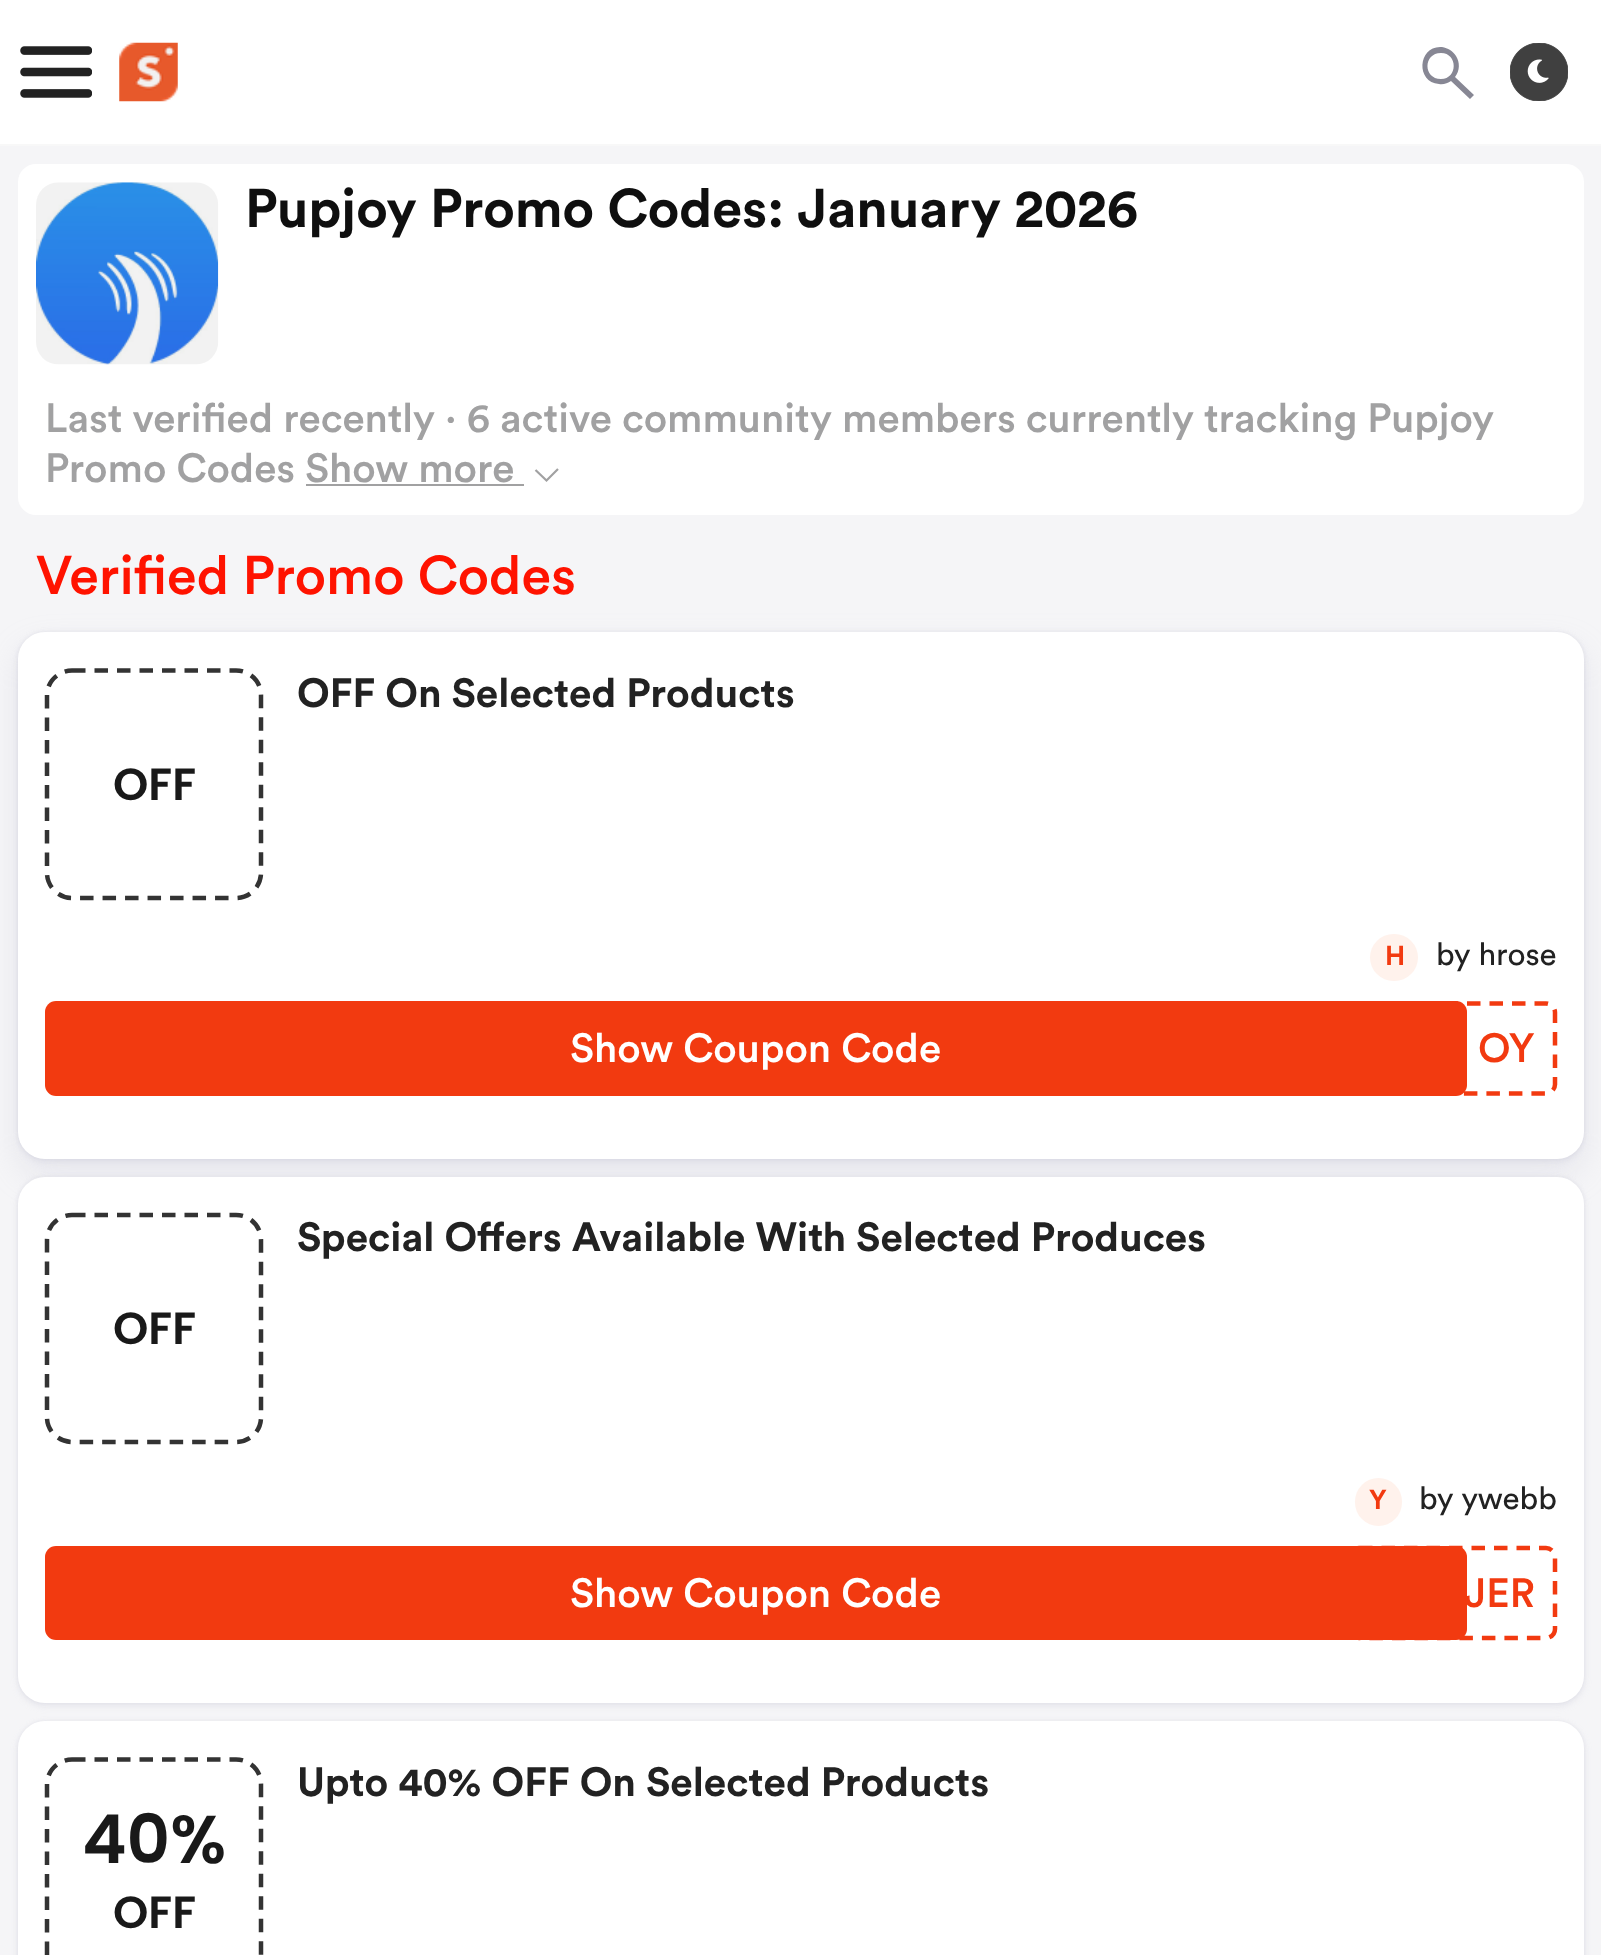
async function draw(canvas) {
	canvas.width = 1601;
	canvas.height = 1955;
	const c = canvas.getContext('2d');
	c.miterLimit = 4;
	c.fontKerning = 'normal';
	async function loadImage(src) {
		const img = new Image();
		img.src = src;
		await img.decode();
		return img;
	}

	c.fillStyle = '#f5f5f7';
	c.fillRect(0, 0, 1601, 1955);
	c.fillStyle = '#fff';
	c.fillRect(0, 0, 1601, 144);
	c.fillStyle = '#f8f8f8';
	c.fillRect(0, 144, 1601, 2);
	c.drawImage(await loadImage('img1.png'), 20, 46, 72, 52);
	c.drawImage(await loadImage('img2.png'), 119, 42, 59, 60);
	c.fillStyle = '#878794';
	c.beginPath();
	c.moveTo(1470, 99);
	c.lineTo(1451, 81);
	c.bezierCurveTo(1448, 83, 1443, 85, 1439, 84);
	c.bezierCurveTo(1415, 82, 1418, 45, 1442, 47);
	c.bezierCurveTo(1448, 48, 1453, 51, 1456, 56);
	c.bezierCurveTo(1460, 62, 1460, 71, 1455, 77);
	c.lineTo(1474, 95);
	c.closePath();
	c.moveTo(1441, 79);
	c.bezierCurveTo(1458, 79, 1458, 53, 1441, 53);
	c.bezierCurveTo(1423, 53, 1423, 79, 1441, 79);
	c.closePath();
	c.fill();
	c.drawImage(await loadImage('img3.png'), 1510, 43, 58, 58);
	c.fillStyle = '#fff';
	c.beginPath();
	c.roundRect(18, 164, 1566, 351, 18);
	c.fill();
	c.drawImage(await loadImage('img4.png'), 36, 182, 183, 183);
	c.font = 'bold 54px Circular';
	c.fillStyle = '#0f0f0f';
	c.fillText('Pupjoy Promo Codes: January 2026', 245, 227);
	c.font = '500 40.5px Circular';
	c.fillStyle = '#a1a1a2';
	c.fillText('Last verified recently · 6 active community members currently tracking Pupjoy', 45, 432);
	c.fillText('Promo Codes Show more', 45, 482);
	c.beginPath();
	c.moveTo(558, 469);
	c.lineTo(546.5, 480.5);
	c.lineTo(535.5, 470);
	c.strokeStyle = '#a1a1a2';
	c.lineWidth = 2.2;
	c.stroke();
	c.fillRect(306, 484, 218, 2);
	c.font = '500 54px Circular';
	c.fillStyle = '#ff1300';
	c.fillText('Verified Promo Codes', 36, 594);
	c.fillStyle = '#bdbdce33';
	c.filter = 'blur(2px)';
	c.beginPath();
	c.roundRect(18, 632, 1566, 527, 27);
	c.fill();
	c.filter = 'none';
	c.fillStyle = '#bdbdce40';
	c.filter = 'blur(3.5px)';
	c.beginPath();
	c.roundRect(18, 635, 1566, 526, 27);
	c.fill();
	c.filter = 'none';
	c.filter = 'blur(16px)';
	c.beginPath();
	c.roundRect(18, 648, 1566, 527, 27);
	c.fill();
	c.filter = 'none';
	c.fillStyle = '#fff';
	c.beginPath();
	c.roundRect(18, 632, 1566, 527, 27);
	c.fill();
	c.font = 'bold 40.5px Circular';
	c.fillStyle = '#222';
	c.fillText('OFF On Selected Products', 297, 707);
	c.beginPath();
	c.moveTo(72, 670.5);
	c.lineTo(236, 670.5);
	c.bezierCurveTo(250, 670.5, 261, 681.5, 261, 695);
	c.lineTo(261, 873);
	c.bezierCurveTo(261, 886.5, 250, 898, 236, 898);
	c.lineTo(72, 898);
	c.bezierCurveTo(58.5, 898, 47, 886.5, 47, 873);
	c.lineTo(47, 695);
	c.bezierCurveTo(47, 681.5, 58.5, 670.5, 72, 670.5);
	c.closePath();
	c.strokeStyle = '#333';
	c.lineWidth = 4.5;
	c.setLineDash([13.5, 9]);
	c.stroke();
	c.font = '600 45px Poppins';
	c.fillStyle = '#191919';
	c.fillText('OFF', 113, 800);
	c.fillStyle = '#fff2ec';
	c.beginPath();
	c.roundRect(1370, 934, 48, 47, 23.5);
	c.fill();
	c.font = 'bold 27px Circular';
	c.fillStyle = '#f23a10';
	c.fillText('H', 1385, 965);
	c.font = '31.5px Circular';
	c.fillStyle = '#222';
	c.fillText('by hrose', 1436, 965);
	c.beginPath();
	c.moveTo(1354.5, 1003.5);
	c.lineTo(1546, 1003.5);
	c.bezierCurveTo(1550.5, 1003.5, 1555, 1007.5, 1555, 1012.5);
	c.lineTo(1555, 1084.5);
	c.bezierCurveTo(1555, 1089.5, 1550.5, 1093.5, 1546, 1093.5);
	c.lineTo(1354.5, 1093.5);
	c.bezierCurveTo(1349.5, 1093.5, 1345.5, 1089.5, 1345.5, 1084.5);
	c.lineTo(1345.5, 1012.5);
	c.bezierCurveTo(1345.5, 1007.5, 1349.5, 1003.5, 1354.5, 1003.5);
	c.closePath();
	c.strokeStyle = '#f23a10';
	c.stroke();
	c.fillStyle = '#f23a10';
	c.beginPath();
	c.roundRect(45, 1001, 1422, 95, 11);
	c.fill();
	c.font = '500 40.5px Circular';
	c.fillStyle = '#fff';
	c.fillText('Show Coupon Code', 570, 1062);
	c.fillStyle = '#f23a10';
	c.fillText('OY', 1478, 1062);
	c.fillStyle = '#bdbdce33';
	c.filter = 'blur(2px)';
	c.beginPath();
	c.roundRect(18, 1177, 1566, 526, 27);
	c.fill();
	c.filter = 'none';
	c.fillStyle = '#bdbdce40';
	c.filter = 'blur(3.5px)';
	c.beginPath();
	c.roundRect(18, 1179, 1566, 527, 27);
	c.fill();
	c.filter = 'none';
	c.fillStyle = '#fff';
	c.beginPath();
	c.roundRect(18, 1177, 1566, 526, 27);
	c.fill();
	c.font = 'bold 40.5px Circular';
	c.fillStyle = '#222';
	c.fillText('Special Offers Available With Selected Produces', 297, 1251);
	c.beginPath();
	c.moveTo(72, 1215);
	c.lineTo(236, 1215);
	c.bezierCurveTo(250, 1215, 261, 1226, 261, 1240);
	c.lineTo(261, 1417.5);
	c.bezierCurveTo(261, 1431, 250, 1442, 236, 1442);
	c.lineTo(72, 1442);
	c.bezierCurveTo(58.5, 1442, 47, 1431, 47, 1417.5);
	c.lineTo(47, 1240);
	c.bezierCurveTo(47, 1226, 58.5, 1215, 72, 1215);
	c.closePath();
	c.strokeStyle = '#333';
	c.stroke();
	c.font = '600 45px Poppins';
	c.fillStyle = '#191919';
	c.fillText('OFF', 113, 1344);
	c.fillStyle = '#fff2ec';
	c.beginPath();
	c.roundRect(1355, 1478, 47, 48, 23.5);
	c.fill();
	c.font = 'bold 27px Circular';
	c.fillStyle = '#f23a10';
	c.fillText('Y', 1369, 1509);
	c.font = '31.5px Circular';
	c.fillStyle = '#222';
	c.fillText('by ywebb', 1419, 1509);
	c.beginPath();
	c.moveTo(1359, 1548);
	c.lineTo(1546, 1548);
	c.bezierCurveTo(1550.5, 1548, 1555, 1552, 1555, 1557);
	c.lineTo(1555, 1629);
	c.bezierCurveTo(1555, 1634, 1550.5, 1638, 1546, 1638);
	c.lineTo(1359, 1638);
	c.bezierCurveTo(1354, 1638, 1350, 1634, 1350, 1629);
	c.lineTo(1350, 1557);
	c.bezierCurveTo(1350, 1552, 1354, 1548, 1359, 1548);
	c.closePath();
	c.strokeStyle = '#f23a10';
	c.stroke();
	c.fillStyle = '#f23a10';
	c.beginPath();
	c.roundRect(45, 1546, 1422, 94, 11);
	c.fill();
	c.font = '500 40.5px Circular';
	c.fillStyle = '#fff';
	c.fillText('Show Coupon Code', 570, 1607);
	c.fillStyle = '#f23a10';
	c.fillText('JER', 1464, 1607);
	c.fillStyle = '#bdbdce33';
	c.filter = 'blur(2px)';
	c.beginPath();
	c.roundRect(18, 1721, 1566, 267, 27);
	c.fill();
	c.filter = 'none';
	c.fillStyle = '#bdbdce40';
	c.filter = 'blur(3.5px)';
	c.beginPath();
	c.roundRect(18, 1724, 1566, 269, 27);
	c.fill();
	c.filter = 'none';
	c.fillStyle = '#fff';
	c.beginPath();
	c.roundRect(18, 1721, 1566, 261, 27);
	c.fill();
	c.font = 'bold 40.5px Circular';
	c.fillStyle = '#222';
	c.fillText('Upto 40% OFF On Selected Products', 297, 1796);
	c.beginPath();
	c.moveTo(72, 1759.5);
	c.lineTo(236, 1759.5);
	c.bezierCurveTo(250, 1759.5, 261, 1770.5, 261, 1784);
	c.lineTo(261, 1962);
	c.bezierCurveTo(261, 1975.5, 250, 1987, 236, 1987);
	c.lineTo(72, 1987);
	c.bezierCurveTo(58.5, 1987, 47, 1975.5, 47, 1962);
	c.lineTo(47, 1784);
	c.bezierCurveTo(47, 1770.5, 58.5, 1759.5, 72, 1759.5);
	c.closePath();
	c.strokeStyle = '#333';
	c.stroke();
	c.font = '600 67.5px Poppins';
	c.fillStyle = '#191919';
	c.fillText('40%', 82, 1863);
	c.font = '600 45px Poppins';
	c.fillText('OFF', 113, 1928);
}

draw(document.querySelector('canvas'));
